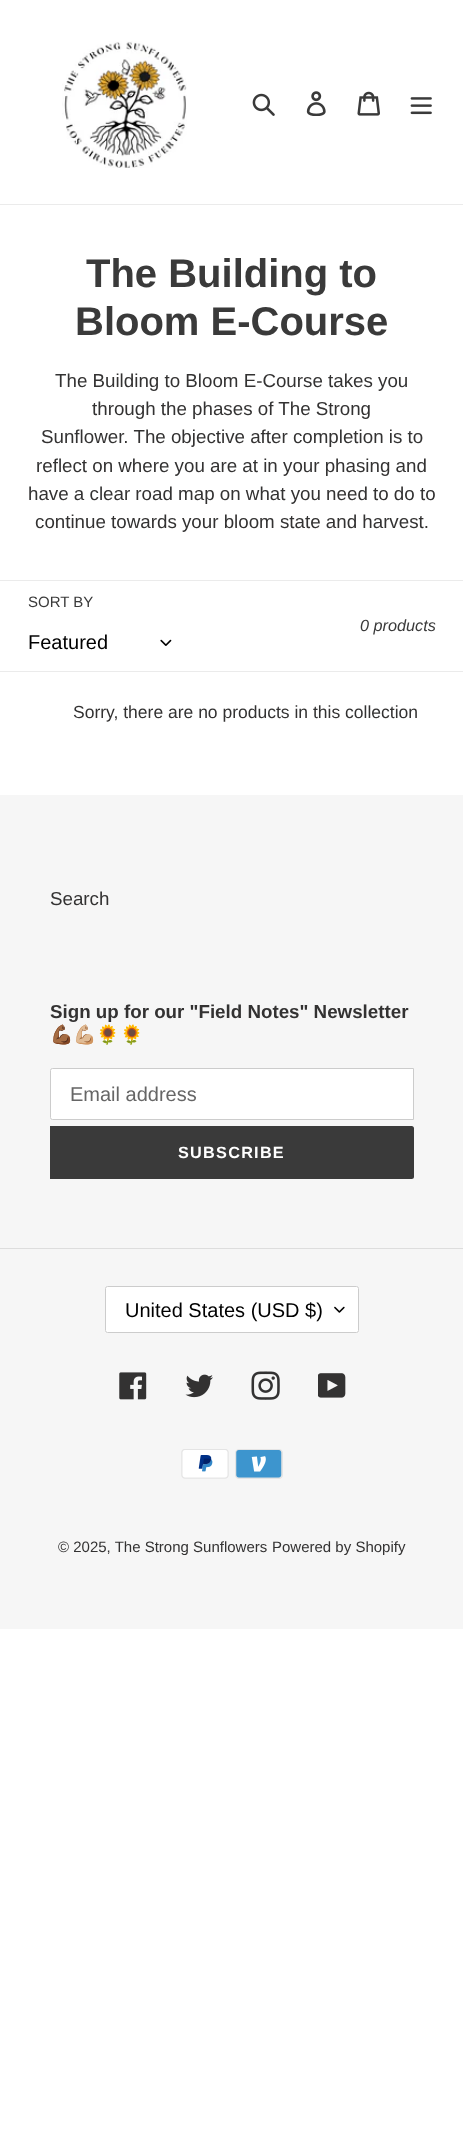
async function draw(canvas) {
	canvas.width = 463;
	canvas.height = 2154;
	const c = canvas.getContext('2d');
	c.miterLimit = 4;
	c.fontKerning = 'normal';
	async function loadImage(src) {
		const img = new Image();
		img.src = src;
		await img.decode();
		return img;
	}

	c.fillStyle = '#fff';
	c.fillRect(0, 0, 463, 2154);
	c.fillStyle = '#ebebeb';
	c.fillRect(0, 204, 463, 1);
	c.drawImage(await loadImage('img1.png'), 62, 41, 125, 127);
	c.drawImage(await loadImage('img2.png'), 252, 93, 23, 23);
	c.drawImage(await loadImage('img3.png'), 306, 91, 20, 25);
	c.drawImage(await loadImage('img4.png'), 357, 91, 23, 25);
	c.drawImage(await loadImage('img5.png'), 410, 97, 22, 18);
	c.font = 'bold 40px Liberation Sans';
	c.fillStyle = '#3a3a3a';
	c.fillText('The Building to', 86, 287);
	c.fillText('Bloom E-Course', 75, 335);
	c.font = '18.75px Liberation Sans';
	c.fillStyle = '#333232';
	for (const [text, x, y] of [
		['The Building to Bloom E-Course takes you', 55, 387],
		['through the phases of The Strong', 92, 415],
		['Sunflower. The objective after completion is to', 41, 443],
		['reflect on where you are at in your phasing and', 36, 472],
		['have a clear road map on what you need to do to', 28, 500],
		['continue towards your bloom state and harvest.', 35, 528],
	]) {
		c.fillText(text, x, y);
	}
	c.fillStyle = '#ebebeb';
	c.fillRect(0, 580, 463, 1);
	c.fillRect(0, 671, 463, 1);
	c.font = '15px Liberation Sans';
	c.fillStyle = '#3a3a3a';
	c.fillText('SORT BY', 28, 607);
	c.font = '20px Liberation Sans';
	c.fillStyle = '#000';
	c.fillText('Featured', 28, 649);
	c.drawImage(await loadImage('img6.png'), 160, 639, 12, 7);
	c.font = 'italic 16.25px Liberation Sans';
	c.fillStyle = '#3a3a3a';
	c.fillText('0 products', 360, 631);
	c.font = '17.5px Liberation Sans';
	c.fillStyle = '#333232';
	c.fillText('Sorry, there are no products in this collection', 73, 718);
	c.fillStyle = '#f6f6f6';
	c.fillRect(0, 795, 463, 834);
	c.font = '18.75px Liberation Sans';
	c.fillStyle = '#333232';
	c.fillText('Search', 50, 905);
	c.font = 'bold 18.75px Liberation Sans';
	c.fillText('Sign up for our "Field Notes" Newsletter', 50, 1018);
	c.font = 'bold 18.75px Noto Color Emoji';
	c.fillText('💪🏾💪🏼🌻🌻', 50, 1041);
	c.fillStyle = '#fff';
	c.beginPath();
	c.roundRect(50.5, 1068.5, 363, 51, [2, 0, 0, 2]);
	c.fill();
	c.strokeStyle = '#ccc';
	c.stroke();
	c.font = '20px Liberation Sans';
	c.fillStyle = '#666';
	c.fillText('Email address', 70, 1101);
	c.fillStyle = '#3a3a3a';
	c.beginPath();
	c.roundRect(50, 1126, 364, 53, [0, 2.5, 2.5, 0]);
	c.fill();
	c.letterSpacing = '1.25px';
	c.font = 'bold 16.25px Liberation Sans';
	c.fillStyle = '#fff';
	c.fillText('SUBSCRIBE', 178, 1158);
	c.fillStyle = '#ddd';
	c.fillRect(0, 1248, 463, 1);
	c.fillStyle = '#fff';
	c.beginPath();
	c.roundRect(105, 1286, 254, 47, 2.5);
	c.fill();
	c.drawImage(await loadImage('img7.png'), 334, 1306, 11, 7);
	c.beginPath();
	c.roundRect(105.5, 1286.5, 253, 46, 2);
	c.stroke();
	c.letterSpacing = '0px';
	c.font = '20px Liberation Sans';
	c.fillStyle = '#000';
	c.fillText('United States (USD $)', 125, 1317);
	c.drawImage(await loadImage('img8.png'), 119, 1372, 28, 28);
	c.drawImage(await loadImage('img9.png'), 185, 1374, 28, 24);
	c.drawImage(await loadImage('img10.png'), 251, 1371, 29, 29);
	c.drawImage(await loadImage('img11.png'), 318, 1373, 28, 25);
	c.drawImage(await loadImage('img12.png'), 181, 1449, 48, 30);
	c.drawImage(await loadImage('img13.png'), 235, 1449, 48, 30);
	c.font = '15px Liberation Sans';
	c.fillStyle = '#333232';
	c.fillText('© 2025, The Strong Sunflowers', 58, 1552);
	c.fillText('Powered by Shopify', 272, 1552);
}

draw(document.querySelector('canvas'));
